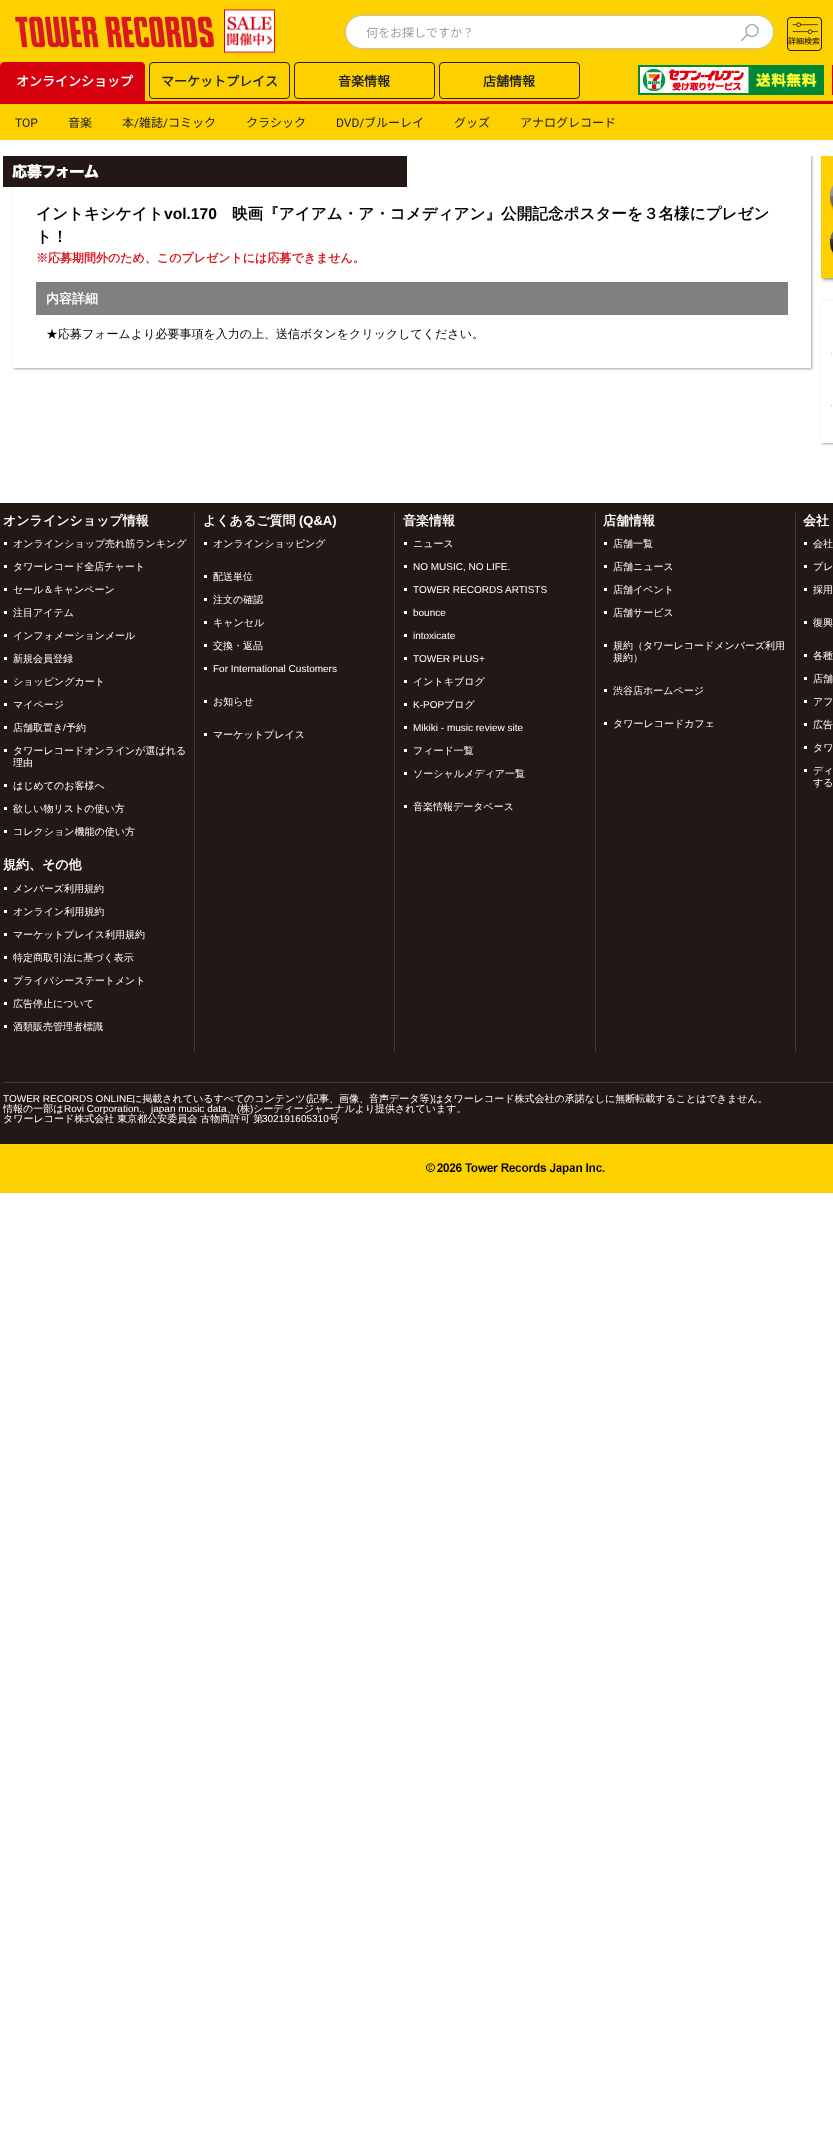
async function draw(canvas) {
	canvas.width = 833;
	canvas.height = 2147;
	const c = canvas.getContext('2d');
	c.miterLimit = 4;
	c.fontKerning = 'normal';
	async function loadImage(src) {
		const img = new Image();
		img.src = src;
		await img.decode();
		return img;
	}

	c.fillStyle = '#fff';
	c.fillRect(0, 0, 833, 2147);
	c.fillStyle = '#fdd000';
	c.fillRect(0, 0, 833, 140);
	c.drawImage(await loadImage('img1.png'), 15, 16, 199, 32);
	c.drawImage(await loadImage('img2.png'), 224, 9, 51, 45);
	c.fillStyle = '#fff';
	c.beginPath();
	c.roundRect(345.5, 15.5, 428, 33, 16.5);
	c.fill();
	c.strokeStyle = '#c0c0c0';
	c.stroke();
	c.font = '100 12px Noto Sans JP';
	c.fillStyle = '#9e9e9e';
	c.fillText('何をお探しですか？', 366, 37);
	c.beginPath();
	c.arc(752, 30.5, 6, 0, 2 * Math.PI);
	c.strokeStyle = '#9e9e9e';
	c.lineWidth = 1.2;
	c.stroke();
	c.beginPath();
	c.moveTo(747.5, 34.5);
	c.lineTo(741.5, 40.5);
	c.lineCap = 'round';
	c.lineJoin = 'round';
	c.stroke();
	c.drawImage(await loadImage('img3.png'), 787, 17, 35, 34);
	c.font = '100 8px Noto Sans JP';
	c.fillStyle = '#000';
	c.fillText('詳細検索', 788, 44);
	c.fillStyle = '#d6000f';
	c.fillRect(0, 101, 833, 3);
	c.beginPath();
	c.roundRect(0.5, 62.5, 144, 40, [3.5, 3.5, 0, 0]);
	c.fill();
	c.strokeStyle = '#d6000f';
	c.lineWidth = 1;
	c.lineJoin = 'miter';
	c.stroke();
	c.font = 'bold 13px Noto Sans JP';
	c.fillStyle = '#fff';
	c.fillText('オンラインショップ', 16, 86);
	c.beginPath();
	c.roundRect(149.5, 62.5, 140, 36, 3.5);
	c.strokeStyle = '#232323';
	c.stroke();
	c.fillStyle = '#232323';
	c.fillText('マーケットプレイス', 161, 86);
	c.beginPath();
	c.roundRect(294.5, 62.5, 140, 36, 3.5);
	c.stroke();
	c.fillText('音楽情報', 338, 86);
	c.beginPath();
	c.roundRect(439.5, 62.5, 140, 36, 3.5);
	c.stroke();
	c.fillText('店舗情報', 483, 86);
	c.drawImage(await loadImage('img4.png'), 638, 65, 186, 30);
	c.drawImage(await loadImage('img5.png'), 832, 65, 1, 30);
	c.font = '12px Roboto';
	c.fillText('TOP', 15, 127);
	c.font = '100 12px Noto Sans JP';
	c.fillText('音楽', 68, 127);
	c.fillText('本', 122, 127);
	c.font = '12px Roboto';
	c.fillText('/', 134, 127);
	c.font = '100 12px Noto Sans JP';
	c.fillText('雑誌', 139, 127);
	c.font = '12px Roboto';
	c.fillText('/', 163, 127);
	c.font = '100 12px Noto Sans JP';
	c.fillText('コミック', 168, 127);
	c.fillText('クラシック', 246, 127);
	c.font = '12px Roboto';
	c.fillText('DVD/', 336, 127);
	c.font = '100 12px Noto Sans JP';
	for (const [text, x, y] of [
		['ブルーレイ', 364, 127],
		['グッズ', 454, 127],
		['アナログレコード', 520, 127],
	]) {
		c.fillText(text, x, y);
	}
	c.drawImage(await loadImage('img6.png'), 12, 156, 802, 207);
	c.drawImage(await loadImage('img7.png'), 12, 363, 802, 9);
	c.drawImage(await loadImage('img8.png'), 3, 156, 404, 31);
	c.font = 'bold 15.6px WenQuanYi Zen Hei';
	c.fillStyle = '#000';
	c.fillText('イントキシケイト', 36, 219);
	c.font = 'bold 15.6px Liberation Sans';
	c.fillText('vol.170', 164, 219);
	c.font = 'bold 15.6px WenQuanYi Zen Hei';
	c.fillText('映画『アイアム・ア・コメディアン』公開記念ポスターを３名様にプレゼン', 232, 219);
	c.fillText('ト！', 36, 242);
	c.font = 'bold 12px WenQuanYi Zen Hei';
	c.fillStyle = '#d71920';
	c.fillText('※応募期間外のため、このプレゼントには応募できません。', 36, 262);
	c.fillStyle = '#808080';
	c.fillRect(36, 282, 752, 33);
	c.font = 'bold 13px WenQuanYi Zen Hei';
	c.fillStyle = '#fff';
	c.fillText('内容詳細', 46, 303);
	c.font = '500 12px WenQuanYi Zen Hei';
	c.fillStyle = '#000';
	c.fillText('★応募フォームより必要事項を入力の上、送信ボタンをクリックしてください。', 46, 338);
	c.drawImage(await loadImage('img9.png'), 821, 278, 12, 5);
	c.fillStyle = '#ffd000';
	c.fillRect(821, 156, 12, 122);
	c.drawImage(await loadImage('img10.png'), 830, 185, 3, 26);
	c.drawImage(await loadImage('img11.png'), 830, 231, 3, 25);
	c.drawImage(await loadImage('img12.png'), 817, 442, 16, 4);
	c.fillStyle = '#fbfbfb';
	c.fillRect(820, 298, 13, 4);
	c.fillStyle = '#f5f5f5';
	c.fillRect(820, 302, 1, 140);
	c.beginPath();
	c.moveTo(831, 353.5);
	c.lineTo(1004, 353.5);
	c.moveTo(831, 405.5);
	c.lineTo(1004, 405.5);
	c.strokeStyle = '#bab6b6';
	c.lineCap = 'butt';
	c.setLineDash([1, 1]);
	c.stroke();
	c.fillStyle = '#231815';
	c.fillRect(0, 503, 833, 641);
	c.drawImage(await loadImage('img13.png'), 194, 513, 602, 539);
	c.font = 'bold 13px WenQuanYi Zen Hei';
	c.fillStyle = '#fff';
	c.fillText('オンラインショップ情報', 3, 525);
	c.fillRect(4, 542, 3, 3);
	c.font = '500 10px WenQuanYi Zen Hei';
	c.fillText('オンラインショップ売れ筋ランキング', 13, 547);
	c.fillRect(4, 565, 3, 3);
	c.fillText('タワーレコード全店チャート', 13, 570);
	c.fillRect(4, 588, 3, 3);
	c.fillText('セール＆キャンペーン', 13, 593);
	c.fillRect(4, 611, 3, 3);
	c.fillText('注目アイテム', 13, 616);
	c.fillRect(4, 634, 3, 3);
	c.fillText('インフォメーションメール', 13, 639);
	c.fillRect(4, 657, 3, 3);
	c.fillText('新規会員登録', 13, 662);
	c.fillRect(4, 680, 3, 3);
	c.fillText('ショッピングカート', 13, 685);
	c.fillRect(4, 703, 3, 3);
	c.fillText('マイページ', 13, 708);
	c.fillRect(4, 726, 3, 3);
	c.fillText('店舗取置き', 13, 731);
	c.font = '10px Liberation Sans';
	c.fillText('/', 63, 731);
	c.font = '500 10px WenQuanYi Zen Hei';
	c.fillText('予約', 66, 731);
	c.fillRect(4, 749, 3, 3);
	c.fillText('タワーレコードオンラインが選ばれる', 13, 754);
	c.fillText('理由', 13, 766);
	c.fillRect(4, 784, 3, 3);
	c.fillText('はじめてのお客様へ', 13, 789);
	c.fillRect(4, 807, 3, 3);
	c.fillText('欲しい物リストの使い方', 13, 812);
	c.fillRect(4, 830, 3, 3);
	c.fillText('コレクション機能の使い方', 13, 835);
	c.font = 'bold 13px WenQuanYi Zen Hei';
	c.fillText('規約、その他', 3, 869);
	c.fillRect(4, 887, 3, 3);
	c.font = '500 10px WenQuanYi Zen Hei';
	c.fillText('メンバーズ利用規約', 13, 892);
	c.fillRect(4, 910, 3, 3);
	c.fillText('オンライン利用規約', 13, 915);
	c.fillRect(4, 933, 3, 3);
	c.fillText('マーケットプレイス利用規約', 13, 938);
	c.fillRect(4, 956, 3, 3);
	c.fillText('特定商取引法に基づく表示', 13, 961);
	c.fillRect(4, 979, 3, 3);
	c.fillText('プライバシーステートメント', 13, 984);
	c.fillRect(4, 1002, 3, 3);
	c.fillText('広告停止について', 13, 1007);
	c.fillRect(4, 1025, 3, 3);
	c.fillText('酒類販売管理者標識', 13, 1030);
	c.font = 'bold 13px WenQuanYi Zen Hei';
	c.fillText('よくあるご質問', 203, 525);
	c.font = 'bold 13px Liberation Sans';
	c.fillText('(Q&A)', 299, 525);
	c.fillRect(204, 542, 3, 3);
	c.font = '500 10px WenQuanYi Zen Hei';
	c.fillText('オンラインショッピング', 213, 547);
	c.fillRect(204, 575, 3, 3);
	c.fillText('配送単位', 213, 580);
	c.fillRect(204, 598, 3, 3);
	c.fillText('注文の確認', 213, 603);
	c.fillRect(204, 621, 3, 3);
	c.fillText('キャンセル', 213, 626);
	c.fillRect(204, 644, 3, 3);
	c.fillText('交換・返品', 213, 649);
	c.fillRect(204, 667, 3, 3);
	c.font = '10px Liberation Sans';
	c.fillText('For International Customers', 213, 672);
	c.fillRect(204, 700, 3, 3);
	c.font = '500 10px WenQuanYi Zen Hei';
	c.fillText('お知らせ', 213, 705);
	c.fillRect(204, 733, 3, 3);
	c.fillText('マーケットプレイス', 213, 738);
	c.font = 'bold 13px WenQuanYi Zen Hei';
	c.fillText('音楽情報', 403, 525);
	c.fillRect(404, 542, 3, 3);
	c.font = '500 10px WenQuanYi Zen Hei';
	c.fillText('ニュース', 413, 547);
	c.fillRect(404, 565, 3, 3);
	c.font = '10px Liberation Sans';
	c.fillText('NO MUSIC, NO LIFE.', 413, 570);
	c.fillRect(404, 588, 3, 3);
	c.fillText('TOWER RECORDS ARTISTS', 413, 593);
	c.fillRect(404, 611, 3, 3);
	c.fillText('bounce', 413, 616);
	c.fillRect(404, 634, 3, 3);
	c.fillText('intoxicate', 413, 639);
	c.fillRect(404, 657, 3, 3);
	c.fillText('TOWER PLUS+', 413, 662);
	c.fillRect(404, 680, 3, 3);
	c.font = '500 10px WenQuanYi Zen Hei';
	c.fillText('イントキブログ', 413, 685);
	c.fillRect(404, 703, 3, 3);
	c.font = '10px Liberation Sans';
	c.fillText('K-POP', 413, 708);
	c.font = '500 10px WenQuanYi Zen Hei';
	c.fillText('ブログ', 444, 708);
	c.fillRect(404, 726, 3, 3);
	c.font = '10px Liberation Sans';
	c.fillText('Mikiki - music review site', 413, 731);
	c.fillRect(404, 749, 3, 3);
	c.font = '500 10px WenQuanYi Zen Hei';
	c.fillText('フィード一覧', 413, 754);
	c.fillRect(404, 772, 3, 3);
	c.fillText('ソーシャルメディア一覧', 413, 777);
	c.fillRect(404, 805, 3, 3);
	c.fillText('音楽情報データベース', 413, 810);
	c.font = 'bold 13px WenQuanYi Zen Hei';
	c.fillText('店舗情報', 603, 525);
	c.fillRect(604, 542, 3, 3);
	c.font = '500 10px WenQuanYi Zen Hei';
	c.fillText('店舗一覧', 613, 547);
	c.fillRect(604, 565, 3, 3);
	c.fillText('店舗ニュース', 613, 570);
	c.fillRect(604, 588, 3, 3);
	c.fillText('店舗イベント', 613, 593);
	c.fillRect(604, 611, 3, 3);
	c.fillText('店舗サービス', 613, 616);
	c.fillRect(604, 644, 3, 3);
	c.fillText('規約（タワーレコードメンバーズ利用', 613, 649);
	c.fillText('規約）', 613, 661);
	c.fillRect(604, 689, 3, 3);
	c.fillText('渋谷店ホームページ', 613, 694);
	c.fillRect(604, 722, 3, 3);
	c.fillText('タワーレコードカフェ', 613, 727);
	c.font = 'bold 13px WenQuanYi Zen Hei';
	c.fillText('会社', 803, 525);
	c.fillRect(804, 542, 3, 3);
	c.font = '500 10px WenQuanYi Zen Hei';
	c.fillText('会社', 813, 547);
	c.fillRect(804, 565, 3, 3);
	c.fillText('プレ', 813, 570);
	c.fillRect(804, 588, 3, 3);
	c.fillText('採用', 813, 593);
	c.fillRect(804, 621, 3, 3);
	c.fillText('復興', 813, 626);
	c.fillRect(804, 654, 3, 3);
	c.fillText('各種', 813, 659);
	c.fillRect(804, 677, 3, 3);
	c.fillText('店舗', 813, 682);
	c.fillRect(804, 700, 3, 3);
	c.fillText('アフ', 813, 705);
	c.fillRect(804, 723, 3, 3);
	c.fillText('広告', 813, 728);
	c.fillRect(804, 746, 3, 3);
	c.fillText('タワ', 813, 751);
	c.fillRect(804, 769, 3, 3);
	c.fillText('ディ', 813, 774);
	c.fillText('する', 813, 786);
	c.fillStyle = '#3b3b3b';
	c.fillRect(3, 1082, 830, 1);
	c.font = '10px Liberation Sans';
	c.fillStyle = '#fff';
	c.fillText('TOWER RECORDS ONLINE', 3, 1102);
	c.font = '500 10px WenQuanYi Zen Hei';
	c.fillText('に掲載されているすべてのコンテンツ', 132, 1102);
	c.font = '10px Liberation Sans';
	c.fillText('(', 306, 1102);
	c.font = '500 10px WenQuanYi Zen Hei';
	c.fillText('記事、画像、音声データ等', 309, 1102);
	c.font = '10px Liberation Sans';
	c.fillText(')', 430, 1102);
	c.font = '500 10px WenQuanYi Zen Hei';
	c.fillText('はタワーレコード株式会社の承諾なしに無断転載することはできません。', 433, 1102);
	c.fillText('情報の一部は', 3, 1112);
	c.font = '10px Liberation Sans';
	c.fillText('Rovi Corporation.', 64, 1112);
	c.font = '500 10px WenQuanYi Zen Hei';
	c.fillText('、', 141, 1112);
	c.font = '10px Liberation Sans';
	c.fillText('japan music data', 151, 1112);
	c.font = '500 10px WenQuanYi Zen Hei';
	c.fillText('、', 227, 1112);
	c.font = '10px Liberation Sans';
	c.fillText('(', 237, 1112);
	c.font = '500 10px WenQuanYi Zen Hei';
	c.fillText('株', 240, 1112);
	c.font = '10px Liberation Sans';
	c.fillText(')', 250, 1112);
	c.font = '500 10px WenQuanYi Zen Hei';
	c.fillText('シーディージャーナルより提供されています。', 253, 1112);
	c.fillText('タワーレコード株式会社 東京都公安委員会 古物商許可 第', 3, 1122);
	c.font = '10px Liberation Sans';
	c.fillText('302191605310', 262, 1122);
	c.font = '500 10px WenQuanYi Zen Hei';
	c.fillText('号', 329, 1122);
	c.fillStyle = '#fdd000';
	c.fillRect(0, 1144, 833, 49);
	c.drawImage(await loadImage('img14.png'), 426, 1163, 179, 12);
}

draw(document.querySelector('canvas'));
